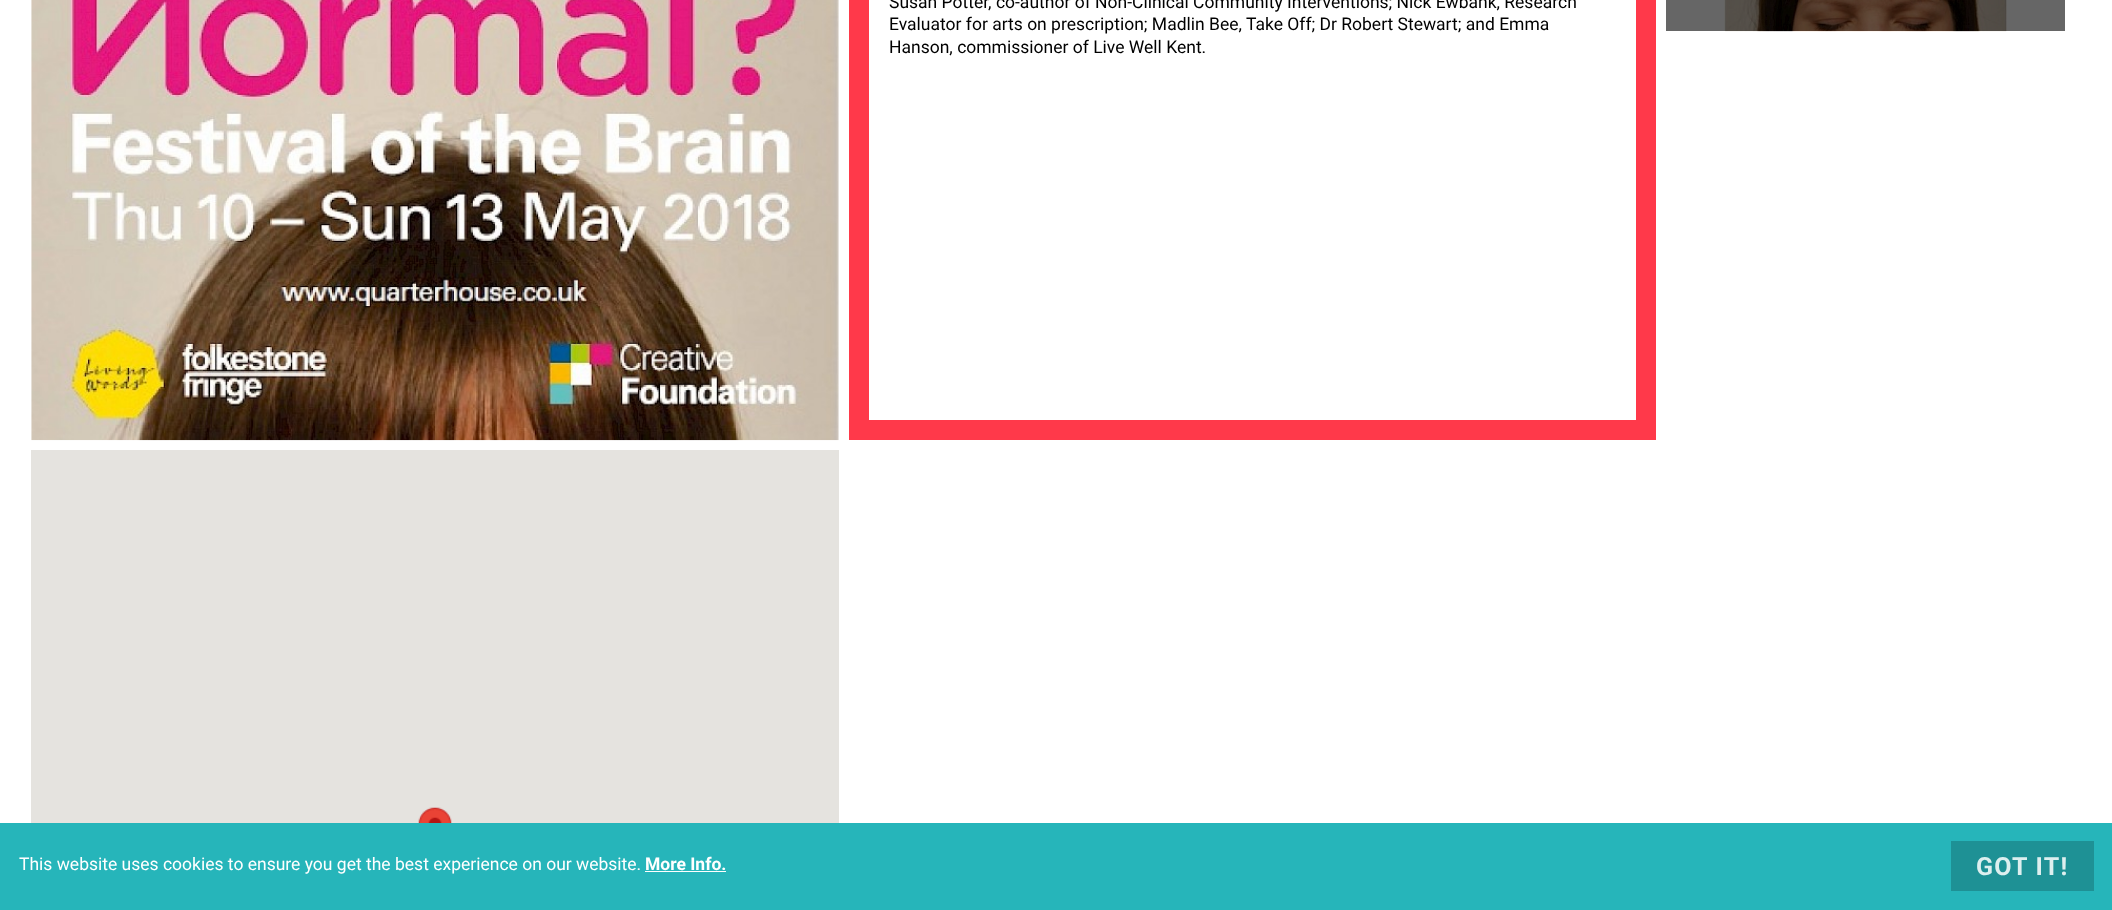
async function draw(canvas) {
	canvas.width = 2112;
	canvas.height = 910;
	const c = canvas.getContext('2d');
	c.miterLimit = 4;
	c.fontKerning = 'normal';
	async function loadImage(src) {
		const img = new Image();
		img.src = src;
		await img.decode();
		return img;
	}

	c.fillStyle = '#fff';
	c.fillRect(0, 0, 2112, 910);
	c.fillStyle = '#666';
	c.fillRect(1666, 0, 399, 31);
	c.drawImage(await loadImage('img1.png'), 31, 0, 808, 441);
	c.fillStyle = '#ff394a';
	c.fillRect(849, 0, 807, 440);
	c.fillStyle = '#fff';
	c.fillRect(869, 0, 767, 420);
	c.font = '17.5px Roboto';
	c.fillStyle = '#000';
	for (const [text, x, y] of [
		['Susan Potter, co-author of Non-Clinical Community Interventions; Nick Ewbank, Research', 889, 8],
		['Evaluator for arts on prescription; Madlin Bee, Take Off; Dr Robert Stewart; and Emma', 889, 30],
		['Hanson, commissioner of Live Well Kent.', 889, 53],
	]) {
		c.fillText(text, x, y);
	}
	c.drawImage(await loadImage('img2.png'), 1724, 0, 283, 32);
	c.fillStyle = '#e5e3df';
	c.fillRect(31, 450, 808, 373);
	c.drawImage(await loadImage('img3.png'), 418, 807, 34, 16);
	c.fillStyle = '#26b5ba';
	c.fillRect(0, 823, 2112, 87);
	c.fillStyle = '#fff';
	c.fillText('This website uses cookies to ensure you get the best experience on our website.', 19, 870);
	c.font = 'bold 17.5px Roboto';
	c.fillText('More Info.', 645, 870);
	c.fillRect(645, 871, 81, 1);
	c.fillStyle = '#1e9195';
	c.fillRect(1951, 841, 143, 50);
	c.letterSpacing = '1.25px';
	c.font = 'bold 25px Roboto';
	c.fillStyle = '#ddefef';
	c.fillText('GOT IT!', 1976, 875);
}

draw(document.querySelector('canvas'));
